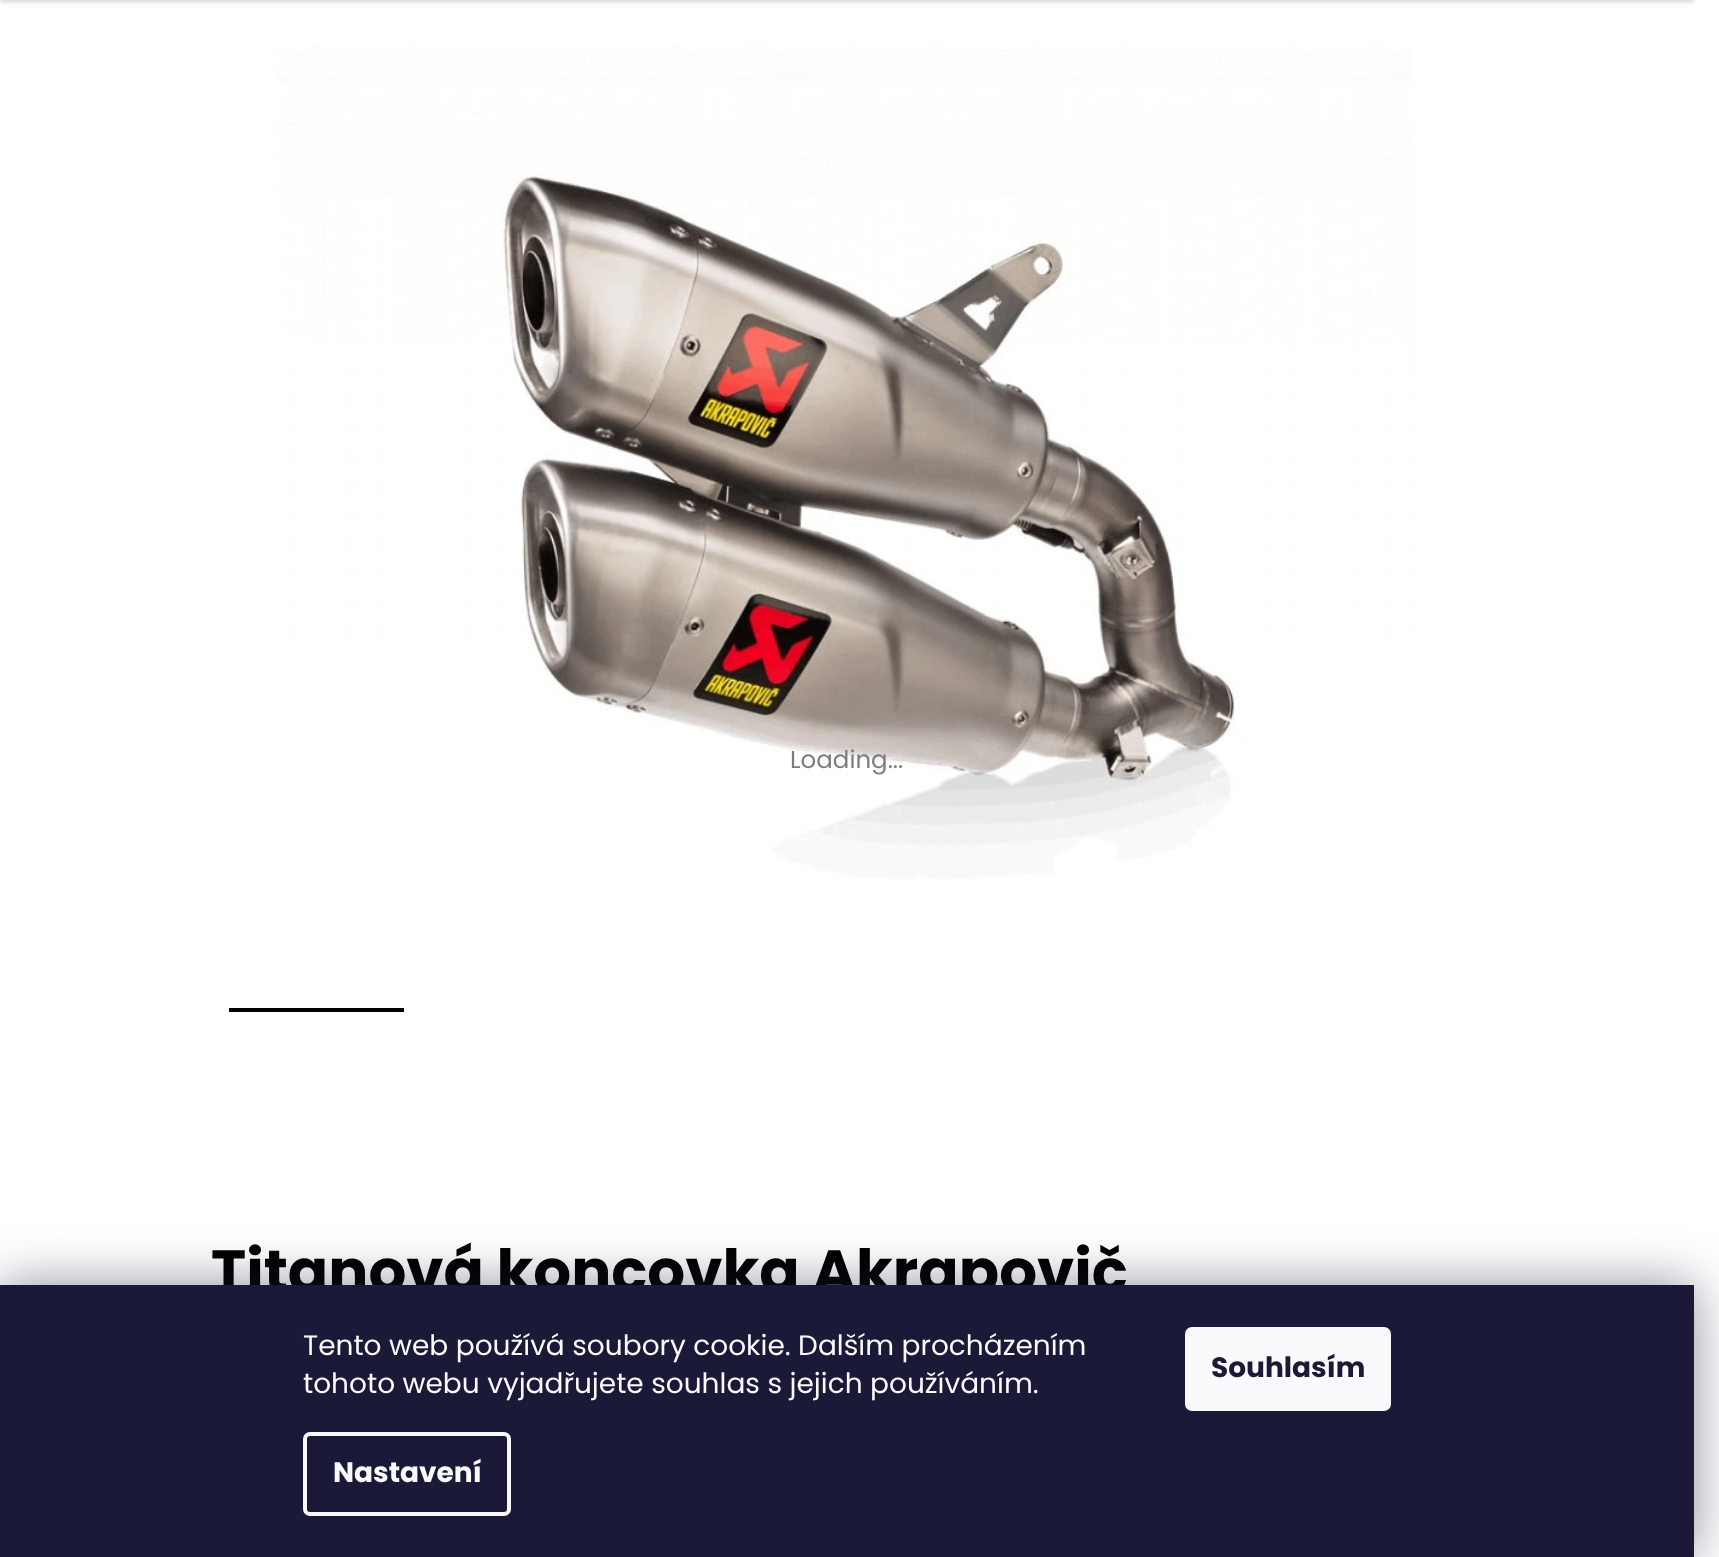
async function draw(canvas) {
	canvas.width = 1719;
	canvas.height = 1557;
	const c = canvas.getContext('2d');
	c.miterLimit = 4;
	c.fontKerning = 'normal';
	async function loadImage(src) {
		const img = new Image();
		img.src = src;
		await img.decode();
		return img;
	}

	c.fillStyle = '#fff';
	c.fillRect(0, 0, 1719, 1557);
	c.fillStyle = '#00000029';
	c.filter = 'blur(2px)';
	c.beginPath();
	c.rect(0, -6, 1694, 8);
	c.fill();
	c.filter = 'none';
	c.drawImage(await loadImage('img1.png'), 278, 47, 1135, 833);
	c.font = '24.5px Poppins';
	c.fillStyle = '#7d7d7d';
	c.fillText('Loading...', 790, 768);
	c.fillStyle = '#000';
	c.fillRect(229, 1008, 175, 4);
	c.font = 'bold 59.5px Poppins';
	c.fillText('Titanová koncovka Akrapovič', 211, 1292);
	c.fillStyle = '#1b193980';
	c.filter = 'blur(26px)';
	c.beginPath();
	c.rect(0, 1285, 1694, 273);
	c.fill();
	c.filter = 'none';
	c.fillStyle = '#1a1937';
	c.fillRect(0, 1285, 1694, 272);
	c.font = '28px Poppins';
	c.fillStyle = '#f8fafb';
	c.fillText('Tento web používá soubory cookie. Dalším procházením', 303, 1355);
	c.fillText('tohoto webu vyjadřujete souhlas s jejich používáním.', 303, 1393);
	c.beginPath();
	c.roundRect(305, 1434, 204, 80, 5);
	c.strokeStyle = '#f8fafb';
	c.lineWidth = 4;
	c.stroke();
	c.font = 'bold 28px Poppins';
	c.fillText('Nastavení', 333, 1482);
	c.beginPath();
	c.roundRect(1185, 1327, 206, 84, 7);
	c.fill();
	c.fillStyle = '#1a1937';
	c.fillText('Souhlasím', 1211, 1377);
}

draw(document.querySelector('canvas'));
